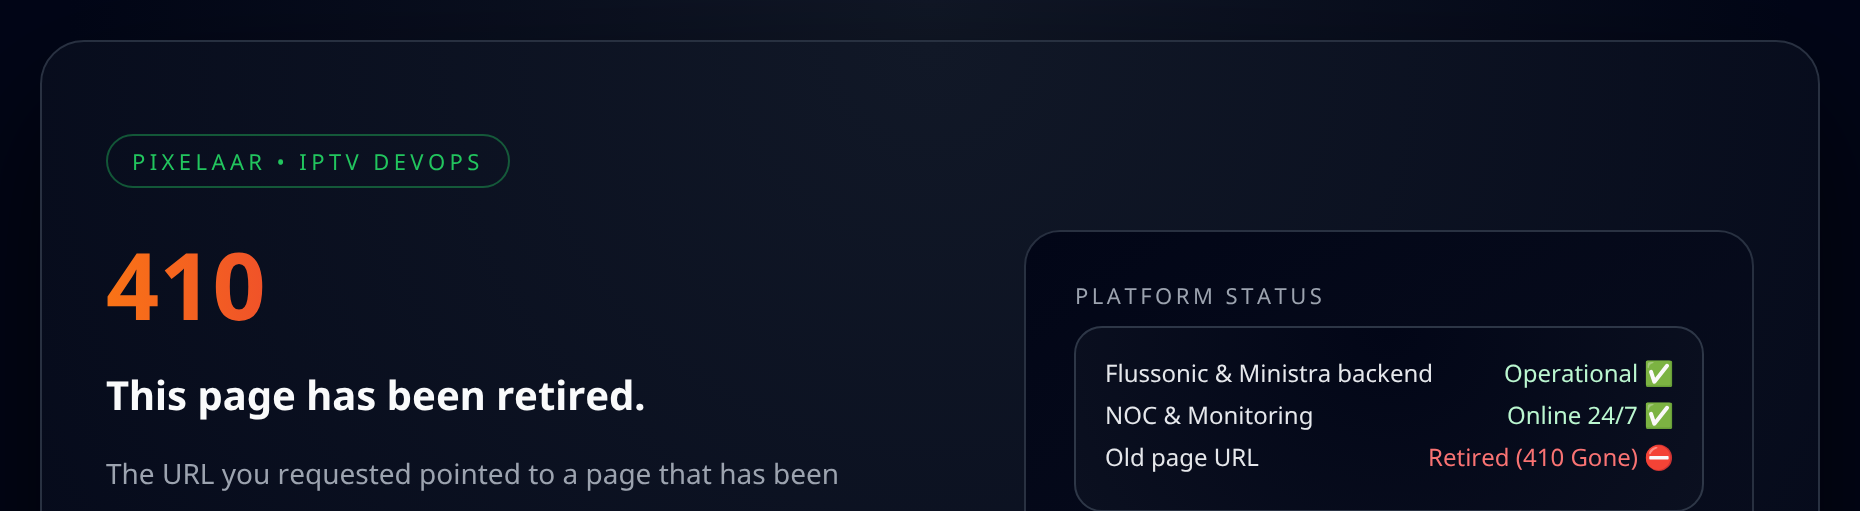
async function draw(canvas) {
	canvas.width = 1860;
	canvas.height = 511;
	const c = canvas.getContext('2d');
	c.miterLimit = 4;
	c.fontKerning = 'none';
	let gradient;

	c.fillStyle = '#fff';
	c.fillRect(0, 0, 1860, 511);
	gradient = c.createRadialGradient(930, 0, 0, 930, 0, 1566);
	gradient.addColorStop(0, '#111827');
	gradient.addColorStop(0.55, '#020617');
	c.fillStyle = gradient;
	c.fillRect(0, 0, 1860, 511);
	c.fillStyle = '#000000b3';
	c.filter = 'blur(70px)';
	c.beginPath();
	c.roundRect(40, 100, 1780, 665, 44);
	c.fill();
	c.filter = 'none';
	c.save();
	c.beginPath();
	c.roundRect(40, 40, 1780, 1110, 44);
	c.clip();
	gradient = c.createRadialGradient(930, -1064, 0, 930, -1064, 1418);
	gradient.addColorStop(0, '#111827');
	gradient.addColorStop(1, '#020617');
	c.fillStyle = gradient;
	c.fillRect(71, 40, 1718, 2);
	gradient = c.createRadialGradient(-846, 42, 0, -846, 42, 1418);
	gradient.addColorStop(0, '#111827');
	gradient.addColorStop(1, '#020617');
	c.fillStyle = gradient;
	c.fillRect(40, 71, 2, 440);
	gradient = c.createRadialGradient(930, 42, 0, 930, 42, 1418);
	gradient.addColorStop(0, '#111827');
	gradient.addColorStop(1, '#020617');
	c.fillStyle = gradient;
	c.fillRect(42, 42, 1776, 469);
	gradient = c.createRadialGradient(2706, 42, 0, 2706, 42, 1418);
	gradient.addColorStop(0, '#111827');
	gradient.addColorStop(1, '#020617');
	c.fillStyle = gradient;
	c.fillRect(1818, 71, 2, 440);
	c.restore();
	c.beginPath();
	c.roundRect(41, 41, 1778, 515, 43);
	c.strokeStyle = '#374151b3';
	c.lineWidth = 2;
	c.stroke();
	c.beginPath();
	c.roundRect(107, 135, 402, 52, 26);
	c.strokeStyle = '#22c55e66';
	c.stroke();
	c.letterSpacing = '4.4px';
	c.font = '22px Noto Sans';
	c.fillStyle = '#22c55e';
	c.fillText('PIXELAAR • IPTV DEVOPS', 132, 170);
	c.letterSpacing = '0px';
	c.font = 'bold 93px Noto Sans';
	gradient = c.createLinearGradient(106, 284, 945, 284);
	gradient.addColorStop(0, '#f97316');
	gradient.addColorStop(0.5, '#e11d48');
	gradient.addColorStop(1, '#22c55e');
	c.fillStyle = gradient;
	c.fillText('410', 106, 320);
	c.font = 'bold 40px Noto Sans';
	c.fillStyle = '#f9fafb';
	c.fillText('This page has been retired.', 106, 410);
	c.font = '28px Noto Sans';
	c.fillStyle = '#9ca3af';
	c.fillText('The URL you requested pointed to a page that has been', 106, 484);
	c.save();
	c.beginPath();
	c.roundRect(1024, 230, 730, 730, 36);
	c.clip();
	gradient = c.createLinearGradient(1099, -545, 1679, 283);
	gradient.addColorStop(0, '#020617');
	gradient.addColorStop(1, '#0b1020');
	c.fillStyle = gradient;
	c.fillRect(1048, 230, 682, 2);
	gradient = c.createLinearGradient(373, 181, 953, 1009);
	gradient.addColorStop(0, '#020617');
	gradient.addColorStop(1, '#0b1020');
	c.fillStyle = gradient;
	c.fillRect(1024, 254, 2, 257);
	gradient = c.createLinearGradient(1099, 181, 1679, 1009);
	gradient.addColorStop(0, '#020617');
	gradient.addColorStop(1, '#0b1020');
	c.fillStyle = gradient;
	c.fillRect(1026, 232, 726, 279);
	gradient = c.createLinearGradient(1825, 181, 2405, 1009);
	gradient.addColorStop(0, '#020617');
	gradient.addColorStop(1, '#0b1020');
	c.fillStyle = gradient;
	c.fillRect(1752, 254, 2, 257);
	c.restore();
	c.beginPath();
	c.roundRect(1025, 231, 728, 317, 35);
	c.strokeStyle = '#374151b3';
	c.stroke();
	c.letterSpacing = '3.5px';
	c.font = '22px Noto Sans';
	c.fillText('PLATFORM STATUS', 1075, 304);
	c.save();
	c.beginPath();
	c.roundRect(1074, 326, 630, 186, 28);
	c.clip();
	gradient = c.createRadialGradient(1389, 146, 0, 1389, 146, 362);
	gradient.addColorStop(0, '#020617');
	gradient.addColorStop(1, '#0b1020');
	c.fillStyle = gradient;
	c.fillRect(1091, 326, 596, 2);
	gradient = c.createRadialGradient(763, 328, 0, 763, 328, 362);
	gradient.addColorStop(0, '#020617');
	gradient.addColorStop(1, '#0b1020');
	c.fillStyle = gradient;
	c.fillRect(1074, 343, 2, 152);
	gradient = c.createRadialGradient(1389, 328, 0, 1389, 328, 362);
	gradient.addColorStop(0, '#020617');
	gradient.addColorStop(1, '#0b1020');
	c.fillStyle = gradient;
	c.fillRect(1076, 328, 626, 182);
	gradient = c.createRadialGradient(2015, 328, 0, 2015, 328, 362);
	gradient.addColorStop(0, '#020617');
	gradient.addColorStop(1, '#0b1020');
	c.fillStyle = gradient;
	c.fillRect(1702, 343, 2, 151);
	gradient = c.createRadialGradient(1389, 510, 0, 1389, 510, 362);
	gradient.addColorStop(0, '#020617');
	gradient.addColorStop(1, '#0b1020');
	c.fillStyle = gradient;
	c.fillRect(1091, 510, 595, 1);
	c.restore();
	c.beginPath();
	c.roundRect(1075, 327, 628, 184, 27);
	c.strokeStyle = '#374151cc';
	c.stroke();
	c.letterSpacing = '0px';
	c.font = '24px Noto Sans';
	c.fillStyle = '#e5e7eb';
	c.fillText('Flussonic & Ministra backend', 1105, 382);
	c.fillStyle = '#bbf7d0';
	c.fillText('Operational', 1504, 382);
	c.font = '24px Noto Color Emoji';
	c.fillText('✅', 1644, 382);
	c.font = '24px Noto Sans';
	c.fillStyle = '#e5e7eb';
	c.fillText('NOC & Monitoring', 1105, 424);
	c.fillStyle = '#bbf7d0';
	c.fillText('Online 24/7', 1507, 424);
	c.font = '24px Noto Color Emoji';
	c.fillText('✅', 1644, 424);
	c.font = '24px Noto Sans';
	c.fillStyle = '#e5e7eb';
	c.fillText('Old page URL', 1105, 466);
	c.fillStyle = '#f97373';
	c.fillText('Retired (410 Gone)', 1428, 466);
	c.font = '24px Noto Color Emoji';
	c.fillText('⛔', 1644, 466);
}

draw(document.querySelector('canvas'));
